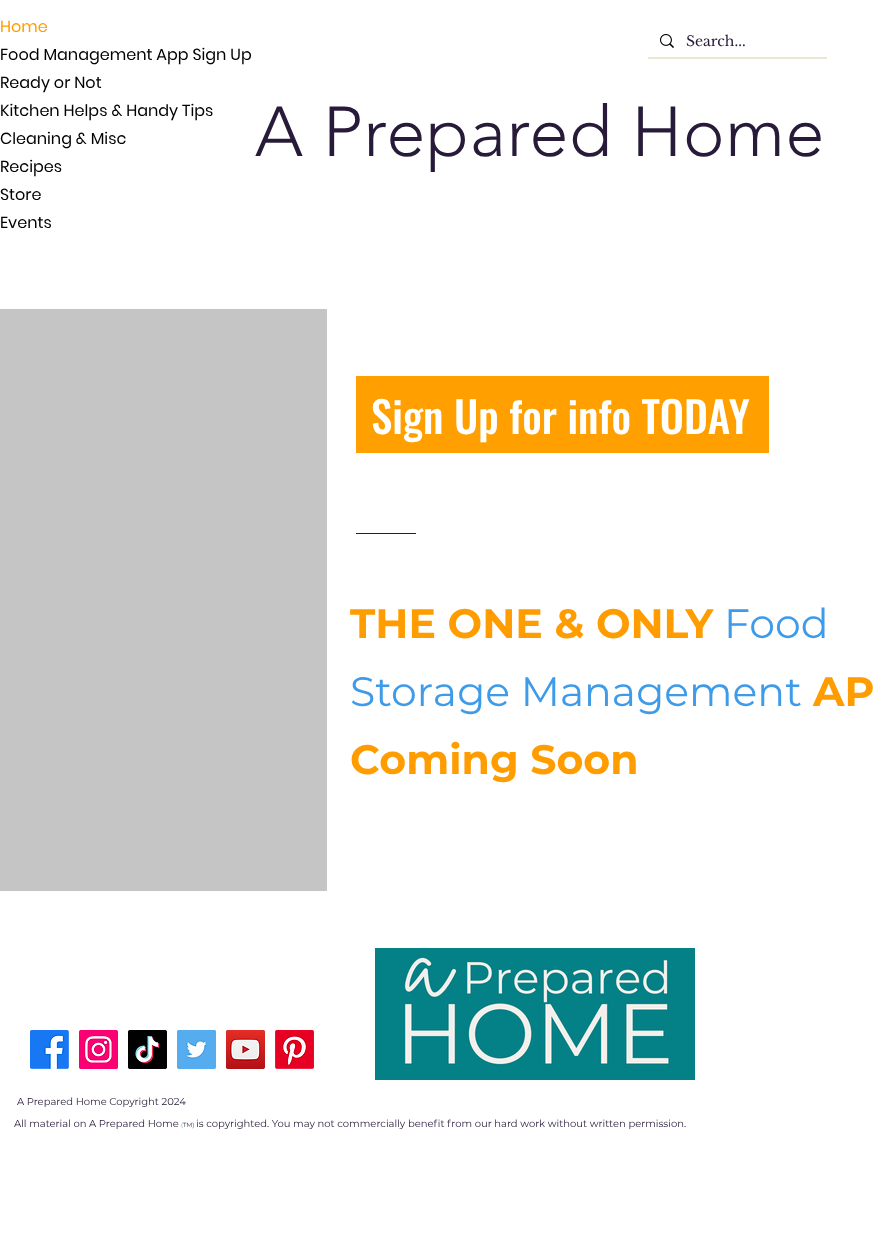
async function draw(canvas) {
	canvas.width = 875;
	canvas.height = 1246;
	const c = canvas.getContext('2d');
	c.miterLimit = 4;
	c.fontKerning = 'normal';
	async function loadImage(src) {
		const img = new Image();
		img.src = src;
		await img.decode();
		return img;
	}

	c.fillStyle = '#fff';
	c.fillRect(0, 0, 875, 1246);
	c.font = '16px Poppins';
	c.fillStyle = '#ff9d00';
	c.fillText('Home', 0, 32);
	c.fillStyle = '#000';
	for (const [text, x, y] of [
		['Food Management App Sign Up', 0, 60],
		['Ready or Not', 0, 88],
		['Kitchen Helps & Handy Tips', 0, 116],
		['Cleaning & Misc', 0, 144],
		['Recipes', 0, 172],
		['Store', 0, 200],
		['Events', 0, 228],
	]) {
		c.fillText(text, x, y);
	}
	c.fillStyle = '#ebe5d6';
	c.fillRect(648, 57, 179, 2);
	c.drawImage(await loadImage('img1.png'), 660, 34, 14, 14);
	c.font = '14px Libre Baskerville';
	c.fillStyle = '#281a39';
	c.fillText('Search...', 686, 46);
	c.letterSpacing = '0.75px';
	c.font = '300 70px "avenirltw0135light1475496"';
	c.fillText('A Prepared Home', 255, 156);
	c.fillStyle = '#c5c5c5';
	c.fillRect(0, 309, 327, 582);
	c.fillStyle = '#ff9f00';
	c.fillRect(356, 376, 413, 77);
	c.letterSpacing = '0px';
	c.font = '500 43px Oswald';
	c.fillStyle = '#fff';
	c.fillText('Sign Up for info TODAY', 371, 434);
	c.fillStyle = '#281a39';
	c.fillRect(356, 533, 60, 1);
	c.font = 'bold 41px Montserrat';
	c.fillStyle = '#ff9d00';
	c.fillText('THE ONE & ONLY', 350, 638);
	c.font = '41px Montserrat';
	c.fillStyle = '#3d9be9';
	c.fillText('Food', 724, 638);
	c.fillText('Storage Management', 350, 706);
	c.font = 'bold 41px Montserrat';
	c.fillStyle = '#ff9d00';
	c.fillText('AP', 813, 706);
	c.fillText('Coming Soon', 350, 774);
	c.drawImage(await loadImage('img2.png'), 30, 1030, 39, 39);
	c.drawImage(await loadImage('img3.png'), 79, 1030, 39, 39);
	c.drawImage(await loadImage('img4.png'), 128, 1030, 39, 39);
	c.drawImage(await loadImage('img5.png'), 177, 1030, 39, 39);
	c.drawImage(await loadImage('img6.png'), 226, 1030, 39, 39);
	c.drawImage(await loadImage('img7.png'), 275, 1030, 39, 39);
	c.drawImage(await loadImage('img8.png'), 375, 948, 320, 132);
	c.font = '10px Montserrat';
	c.fillStyle = '#281a39';
	c.fillText('A Prepared Home Copyright 2024', 17, 1105);
	c.fillText('All material on A Prepared Home', 14, 1127);
	c.font = '6px Montserrat';
	c.fillStyle = '#55a1a4';
	c.fillText('(', 181, 1127);
	c.font = '10px Montserrat';
	c.fillStyle = '#281a39';
	c.fillText('is copyrighted. You may not commercially benefit from our hard work without written permission.', 196, 1127);
	c.font = '6px Montserrat';
	c.fillText('TM)', 183, 1127);
}

draw(document.querySelector('canvas'));
